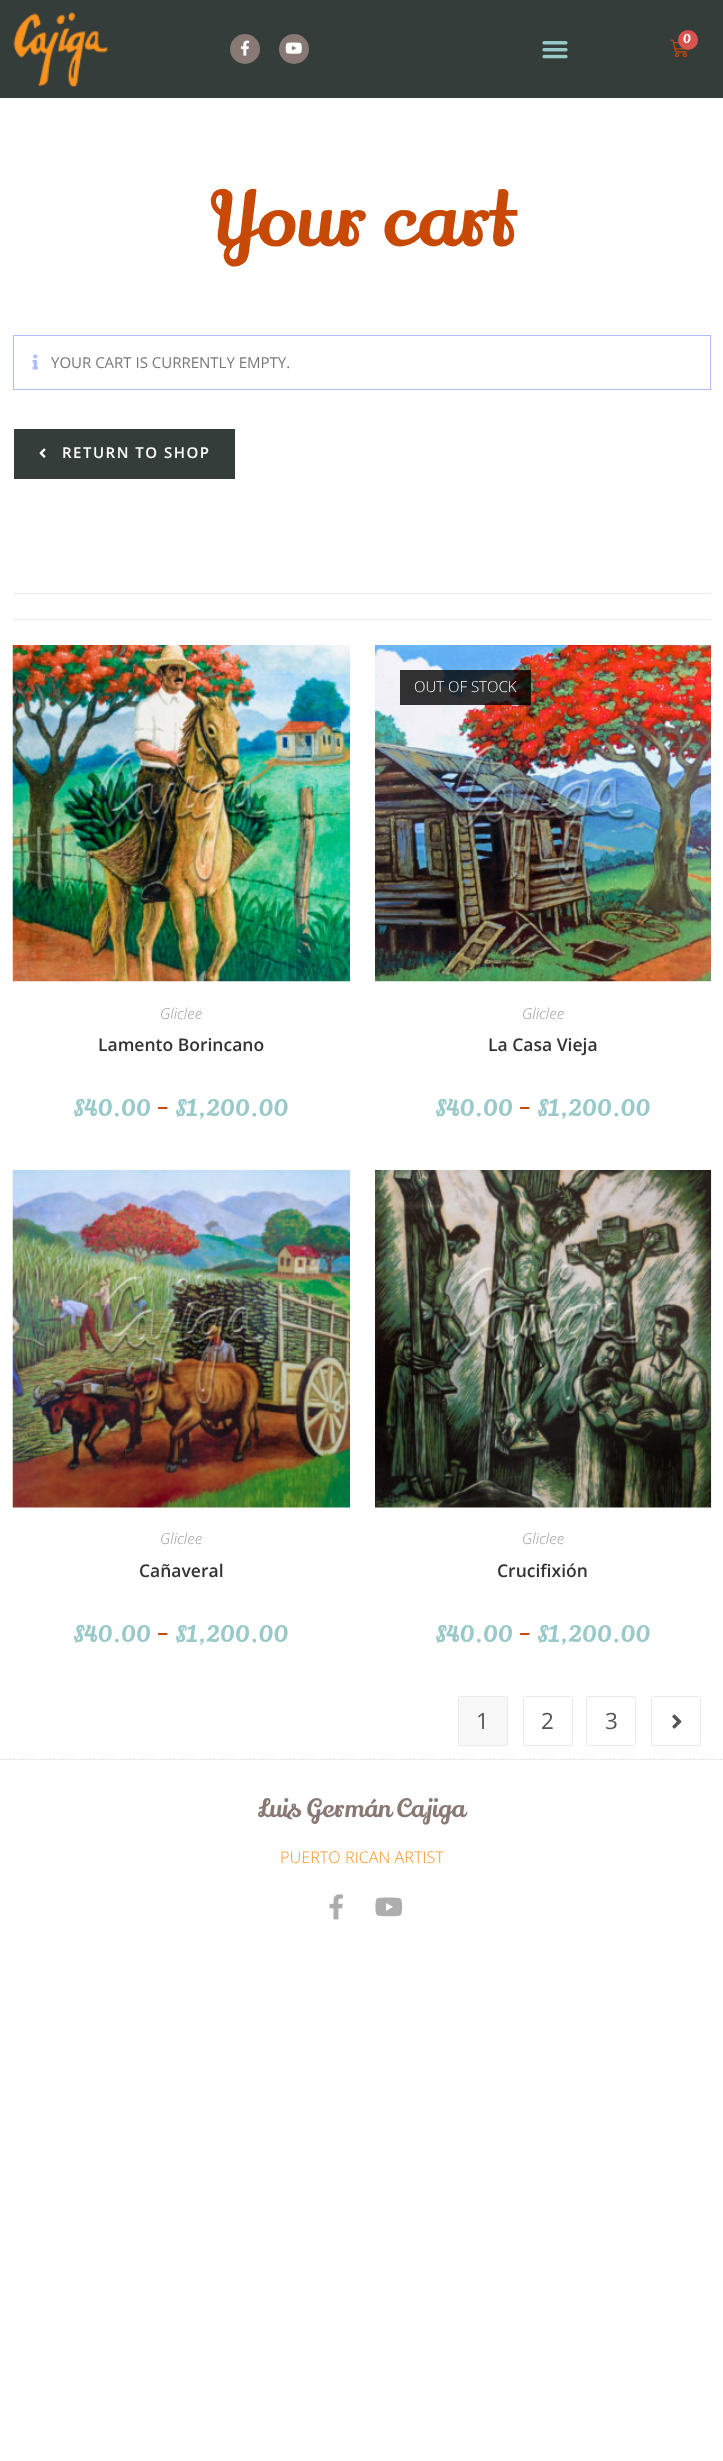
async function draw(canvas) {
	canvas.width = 723;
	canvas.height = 2461;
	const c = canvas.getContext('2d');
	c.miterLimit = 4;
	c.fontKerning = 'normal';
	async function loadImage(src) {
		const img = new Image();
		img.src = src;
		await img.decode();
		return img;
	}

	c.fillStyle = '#fff';
	c.fillRect(0, 0, 723, 2461);
	c.fillStyle = '#343d3a';
	c.fillRect(0, 0, 723, 98);
	c.drawImage(await loadImage('img1.png'), 13, 12, 95, 75);
	c.fillStyle = '#887974';
	c.beginPath();
	c.arc(245, 49, 15, 0, 2 * Math.PI);
	c.fill();
	c.drawImage(await loadImage('img2.png'), 241, 40, 8, 16);
	c.beginPath();
	c.arc(294, 49, 15, 0, 2 * Math.PI);
	c.fill();
	c.drawImage(await loadImage('img3.png'), 285, 42, 17, 12);
	c.drawImage(await loadImage('img4.png'), 542, 41, 26, 18);
	c.drawImage(await loadImage('img5.png'), 670, 39, 17, 19);
	c.fillStyle = '#d9534f';
	c.beginPath();
	c.arc(688, 40, 10, 0, 2 * Math.PI);
	c.fill();
	c.font = '12px Lily Script One';
	c.fillStyle = '#fff';
	c.fillText('0', 683, 43);
	c.font = '75px Lily Script One';
	c.fillStyle = '#c84905';
	c.fillText('Your cart', 209, 246);
	c.strokeStyle = '#b1befd';
	c.strokeRect(13.5, 335.5, 697, 54);
	c.drawImage(await loadImage('img6.png'), 32, 354, 7, 16);
	c.font = '15px Open Sans';
	c.fillStyle = '#777';
	c.fillText('YOUR CART IS CURRENTLY EMPTY.', 51, 368);
	c.fillStyle = '#343d3a';
	c.fillRect(14, 429, 221, 50);
	c.drawImage(await loadImage('img7.png'), 39, 448, 7, 10);
	c.letterSpacing = '1.5px';
	c.font = '600 15px Open Sans';
	c.fillStyle = '#fff';
	c.fillText('RETURN TO SHOP', 62, 458);
	c.fillStyle = '#eaeaea';
	c.fillRect(13, 593, 698, 1);
	c.fillRect(13, 619, 698, 1);
	c.drawImage(await loadImage('img8.png'), 12, 645, 338, 337);
	c.letterSpacing = '0px';
	c.font = 'italic 300 15px Open Sans';
	c.fillStyle = '#999';
	c.fillText('Gliclee', 160, 1019);
	c.font = '600 17.5px Open Sans';
	c.fillStyle = '#333';
	c.fillText('Lamento Borincano', 98, 1051);
	c.font = '22.5px Lily Script One';
	c.fillStyle = '#99c9c9';
	c.fillText('$40.00', 73, 1116);
	c.fillStyle = '#c84905';
	c.fillText('–', 156, 1116);
	c.fillStyle = '#99c9c9';
	c.fillText('$1,200.00', 175, 1116);
	c.drawImage(await loadImage('img9.png'), 375, 645, 337, 337);
	c.fillStyle = '#000000cc';
	c.fillRect(400, 670, 131, 35);
	c.font = '300 15px Open Sans';
	c.fillStyle = '#fff';
	c.fillText('OUT OF STOCK', 414, 692);
	c.font = 'italic 300 15px Open Sans';
	c.fillStyle = '#999';
	c.fillText('Gliclee', 522, 1019);
	c.font = '600 17.5px Open Sans';
	c.fillStyle = '#333';
	c.fillText('La Casa Vieja', 488, 1051);
	c.font = '22.5px Lily Script One';
	c.fillStyle = '#99c9c9';
	c.fillText('$40.00', 435, 1116);
	c.fillStyle = '#c84905';
	c.fillText('–', 518, 1116);
	c.fillStyle = '#99c9c9';
	c.fillText('$1,200.00', 537, 1116);
	c.drawImage(await loadImage('img10.png'), 12, 1170, 338, 338);
	c.font = 'italic 300 15px Open Sans';
	c.fillStyle = '#999';
	c.fillText('Gliclee', 160, 1544);
	c.font = '600 17.5px Open Sans';
	c.fillStyle = '#333';
	c.fillText('Cañaveral', 139, 1577);
	c.font = '22.5px Lily Script One';
	c.fillStyle = '#99c9c9';
	c.fillText('$40.00', 73, 1642);
	c.fillStyle = '#c84905';
	c.fillText('–', 156, 1642);
	c.fillStyle = '#99c9c9';
	c.fillText('$1,200.00', 175, 1642);
	c.drawImage(await loadImage('img11.png'), 375, 1170, 337, 338);
	c.font = 'italic 300 15px Open Sans';
	c.fillStyle = '#999';
	c.fillText('Gliclee', 522, 1544);
	c.font = '600 17.5px Open Sans';
	c.fillStyle = '#333';
	c.fillText('Crucifixión', 497, 1577);
	c.font = '22.5px Lily Script One';
	c.fillStyle = '#99c9c9';
	c.fillText('$40.00', 435, 1642);
	c.fillStyle = '#c84905';
	c.fillText('–', 518, 1642);
	c.fillStyle = '#99c9c9';
	c.fillText('$1,200.00', 537, 1642);
	c.fillStyle = '#f8f8f8';
	c.beginPath();
	c.roundRect(458.5, 1696.5, 49, 49, 2);
	c.fill();
	c.strokeStyle = '#e9e9e9';
	c.stroke();
	c.font = '22.5px Open Sans';
	c.fillStyle = '#555';
	c.fillText('1', 476, 1729);
	c.beginPath();
	c.roundRect(523.5, 1696.5, 49, 49, 2);
	c.stroke();
	c.fillText('2', 541, 1729);
	c.beginPath();
	c.roundRect(586.5, 1696.5, 49, 49, 2);
	c.stroke();
	c.fillText('3', 605, 1729);
	c.beginPath();
	c.roundRect(651.5, 1696.5, 49, 49, 2);
	c.stroke();
	c.drawImage(await loadImage('img12.png'), 672, 1714, 10, 15);
	c.beginPath();
	c.moveTo(0, 1759.5);
	c.lineTo(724, 1759.5);
	c.strokeStyle = '#d6d6d6';
	c.lineWidth = 1.2;
	c.setLineDash([1.25, 1.25]);
	c.stroke();
	c.font = '25px Lily Script One';
	c.fillStyle = '#887974';
	c.fillText('Luis Germán Cajiga', 258, 1817);
	c.font = '300 16.25px Open Sans';
	c.fillStyle = '#f7931e';
	c.fillText('PUERTO RICAN ARTIST', 280, 1863);
	c.drawImage(await loadImage('img13.png'), 329, 1894, 14, 26);
	c.drawImage(await loadImage('img14.png'), 375, 1897, 28, 20);
}

draw(document.querySelector('canvas'));
